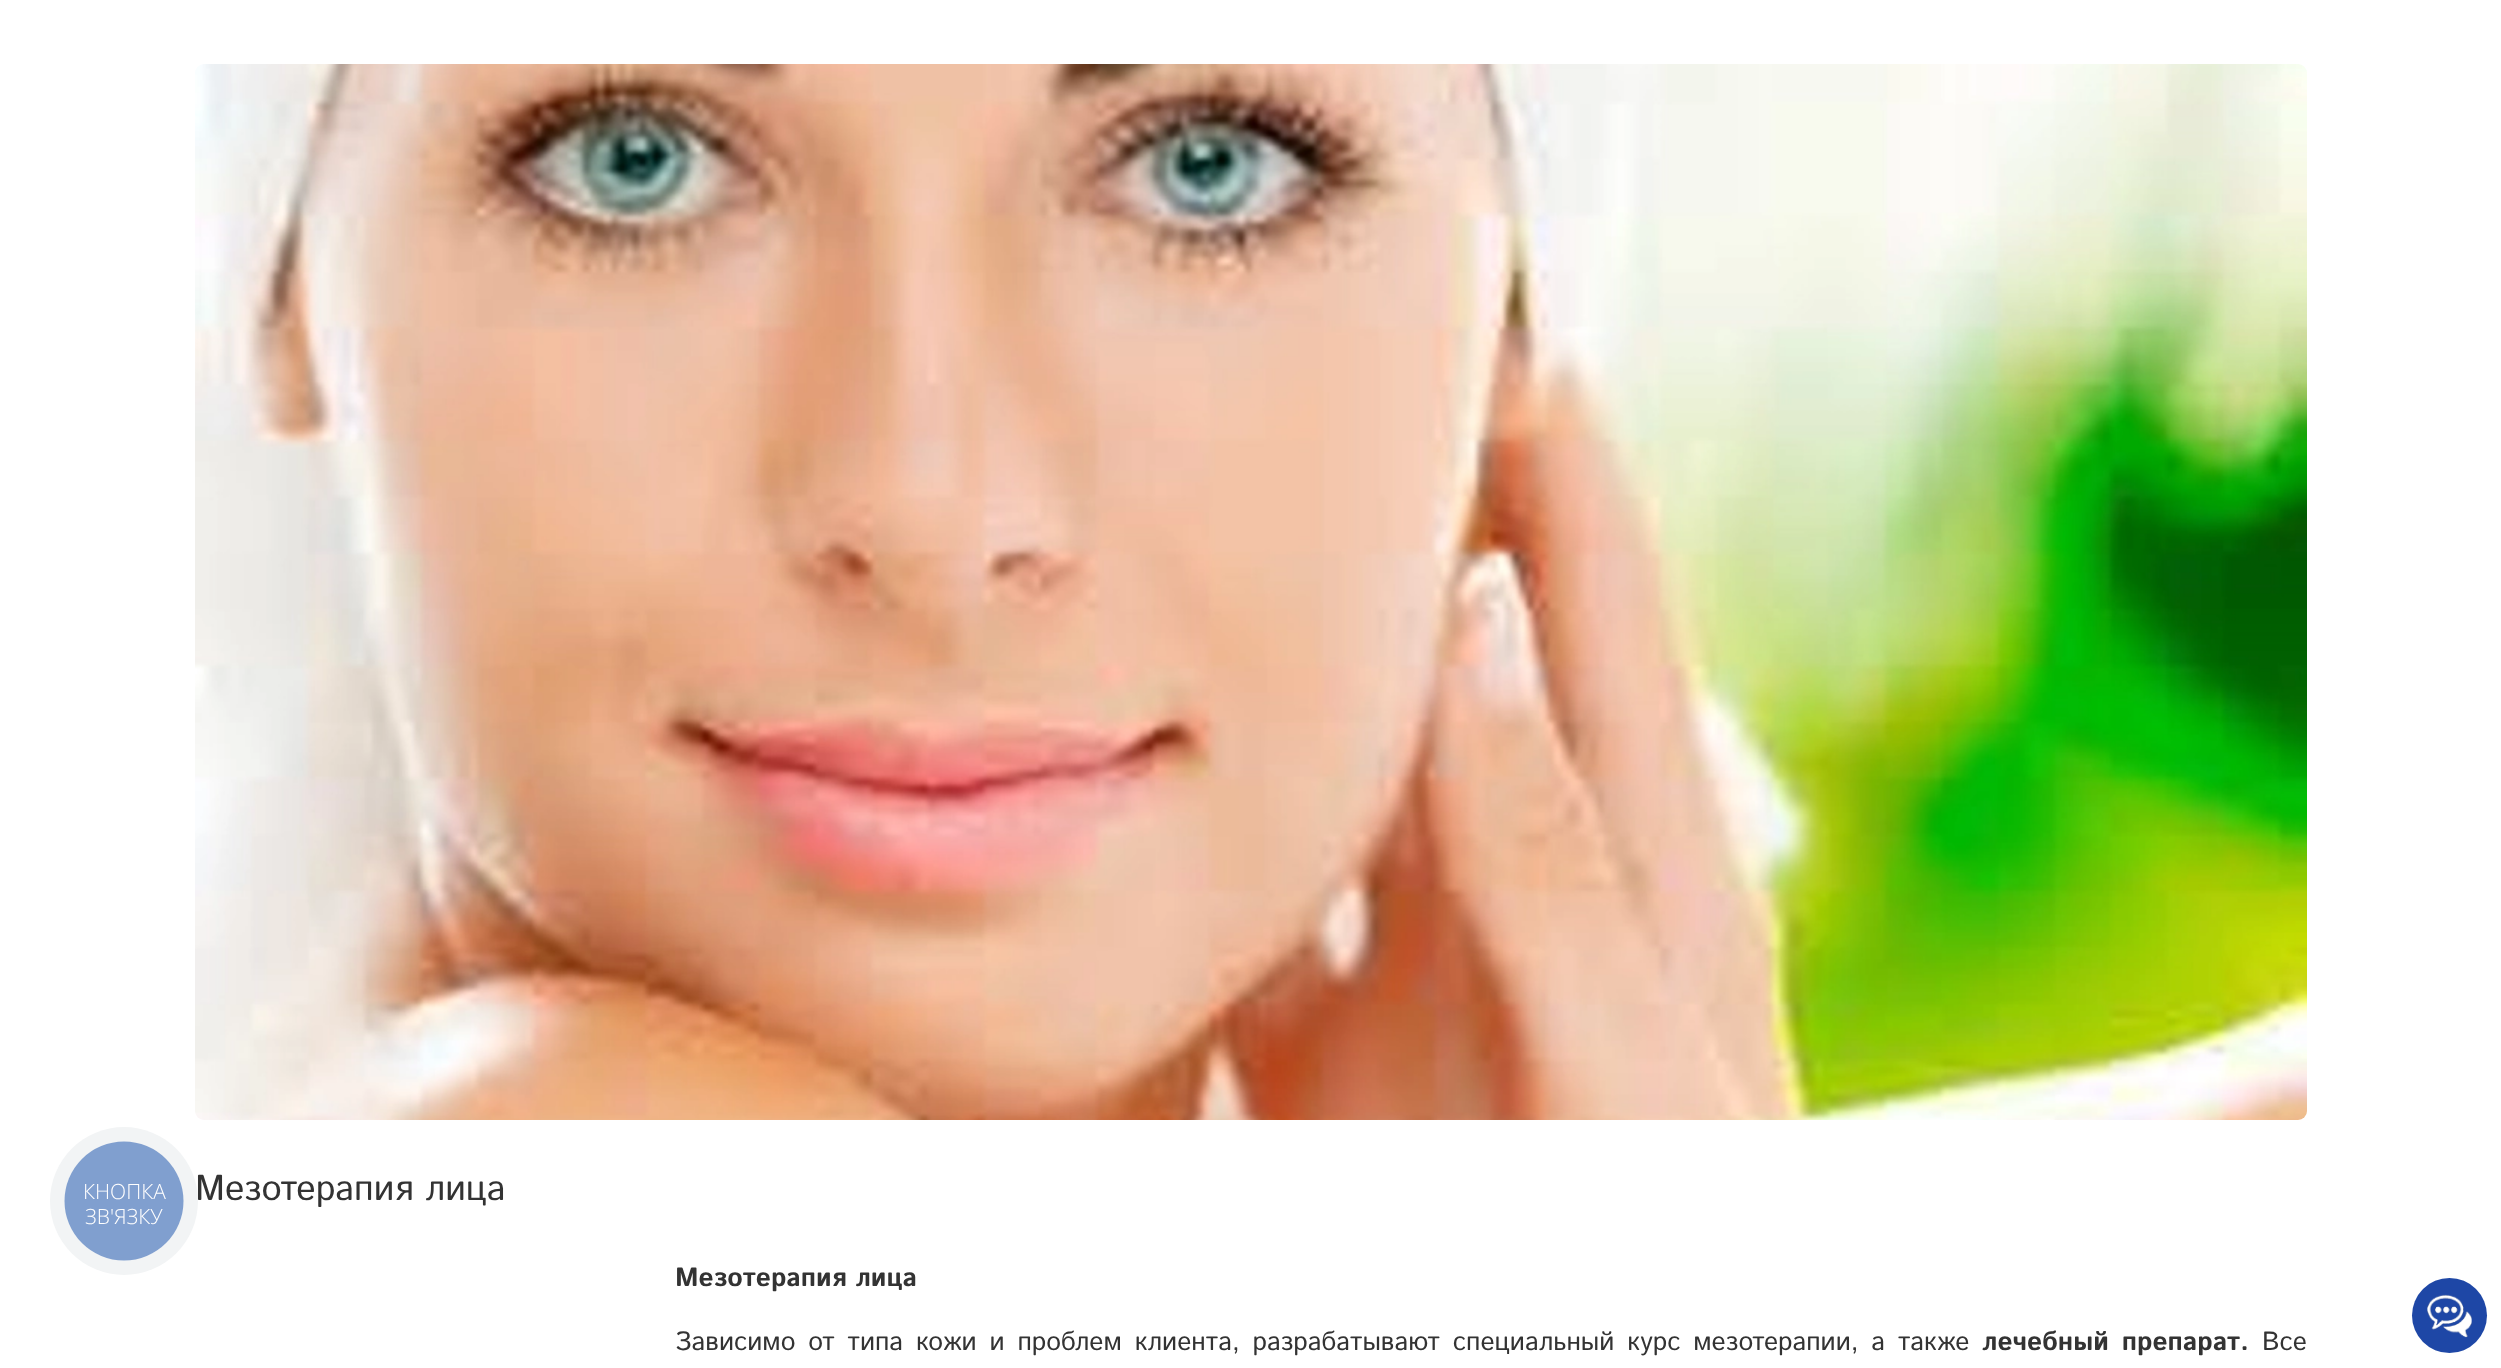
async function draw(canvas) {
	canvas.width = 2501;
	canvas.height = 1368;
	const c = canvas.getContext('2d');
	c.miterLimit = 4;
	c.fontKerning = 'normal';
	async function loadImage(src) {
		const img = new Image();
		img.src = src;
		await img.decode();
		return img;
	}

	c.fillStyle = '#fff';
	c.fillRect(0, 0, 2501, 1368);
	c.font = '36px Istok Web';
	c.fillStyle = '#333';
	c.fillText('Мезотерапия лица', 195, 1200);
	c.fillStyle = '#f2f4f5';
	c.beginPath();
	c.arc(124, 1201, 74, 0, 2 * Math.PI);
	c.fill();
	c.fillStyle = '#809fcf';
	c.beginPath();
	c.arc(124, 1201, 59.5, 0, 2 * Math.PI);
	c.fill();
	c.font = '300 21px Open Sans';
	c.fillStyle = '#fff';
	c.fillText('КНОПКА', 83, 1199);
	c.fillText('ЗВ\'ЯЗКУ', 85, 1224);
	c.drawImage(await loadImage('img1.png'), 195, 64, 2112, 1056);
	c.font = 'bold 26.4px Istok Web';
	c.fillStyle = '#333';
	c.fillText('Мезотерапия лица', 675, 1286);
	c.wordSpacing = '4.1px';
	c.font = '26.4px Istok Web';
	c.fillText('Зависимо от типа кожи и проблем клиента, разрабатывают специальный курс мезотерапии, а также', 675, 1350);
	c.wordSpacing = '4px';
	c.font = 'bold 26.4px Istok Web';
	c.fillText('лечебный препарат.', 1982, 1350);
	c.wordSpacing = '0px';
	c.font = '26.4px Istok Web';
	c.fillText('Все', 2262, 1350);
	c.fillStyle = '#1e47a6';
	c.beginPath();
	c.arc(2449.5, 1315.5, 37.5, 0, 2 * Math.PI);
	c.fill();
	c.drawImage(await loadImage('img2.png'), 2427, 1294, 45, 44);
}

draw(document.querySelector('canvas'));
